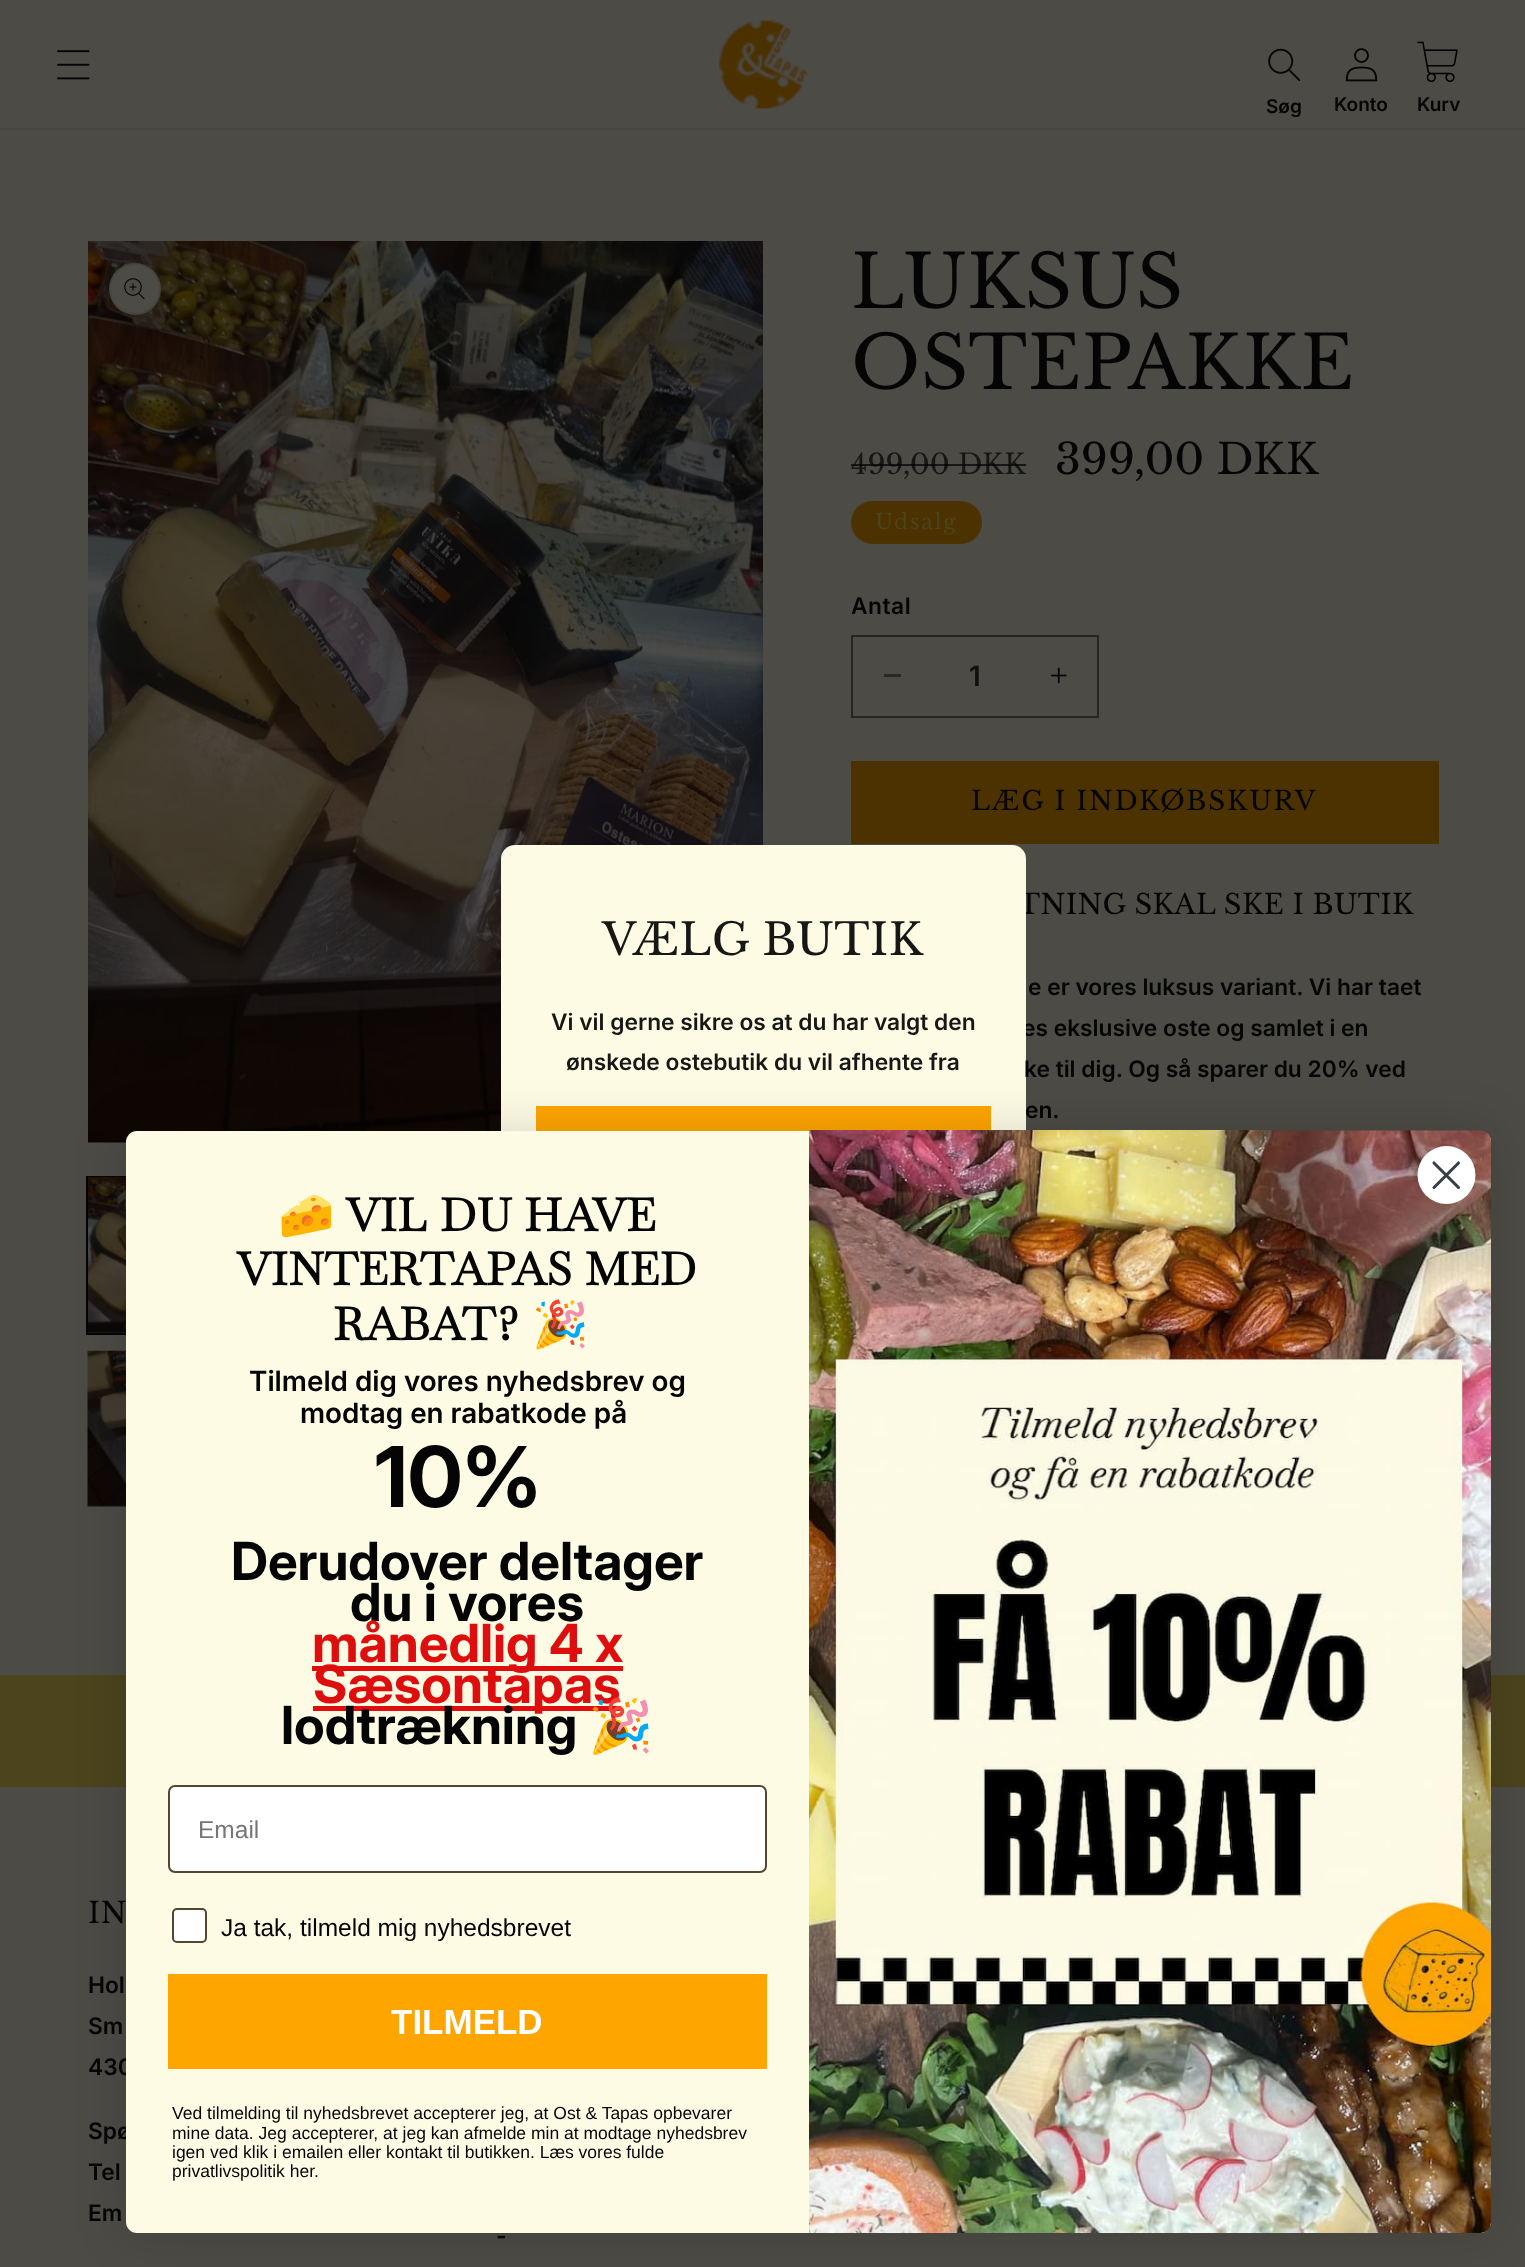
async function draw(canvas) {
	canvas.width = 1525;
	canvas.height = 2267;
	const c = canvas.getContext('2d');
	c.miterLimit = 4;
	c.fontKerning = 'normal';
	async function loadImage(src) {
		const img = new Image();
		img.src = src;
		await img.decode();
		return img;
	}

	c.fillStyle = '#4c4b45';
	c.fillRect(0, 0, 1525, 2267);
	c.fillStyle = '#474640';
	c.fillRect(0, 128, 1525, 2);
	c.drawImage(await loadImage('img1.png'), 57, 50, 33, 30);
	c.drawImage(await loadImage('img2.png'), 719, 20, 88, 89);
	c.drawImage(await loadImage('img3.png'), 1268, 48, 33, 34);
	c.font = '600 19px Inter';
	c.fillStyle = '#050505';
	c.fillText('Søg', 1266, 113);
	c.drawImage(await loadImage('img4.png'), 1345, 48, 33, 34);
	c.fillText('Konto', 1334, 111);
	c.drawImage(await loadImage('img5.png'), 1417, 41, 41, 41);
	c.fillText('Kurv', 1417, 111);
	c.drawImage(await loadImage('img6.png'), 88, 241, 675, 902);
	c.letterSpacing = '0.4px';
	c.font = '27.5px Libre Baskerville';
	c.fillText('TNING SKAL SKE I BUTIK', 1018, 914);
	c.letterSpacing = '0px';
	c.font = '600 22.75px Inter';
	c.fillText('es ekslusive oste og samlet i en', 1022, 1036);
	c.fillText('en.', 1025, 1118);
	c.fillStyle = '#fefbe5';
	c.beginPath();
	c.roundRect(501, 845, 525, 578, 14);
	c.fill();
	c.letterSpacing = '0.4px';
	c.font = '44px Libre Baskerville';
	c.fillStyle = '#171715';
	c.fillText('VÆLG BUTIK', 602, 955);
	c.letterSpacing = '0px';
	c.font = '600 22.75px Inter';
	c.fillText('Vi vil gerne sikre os at du har valgt den', 551, 1030);
	c.fillText('ønskede ostebutik du vil afhente fra', 566, 1070);
	c.fillStyle = '#fea500';
	c.fillRect(536, 1106, 455, 25);
	c.fillStyle = '#4c4b45';
	c.beginPath();
	c.arc(135, 289, 26, 0, 2 * Math.PI);
	c.fill();
	c.beginPath();
	c.arc(135, 289, 25, 0, 2 * Math.PI);
	c.strokeStyle = '#0505051a';
	c.lineWidth = 2;
	c.stroke();
	c.drawImage(await loadImage('img7.png'), 124, 278, 21, 22);
	c.strokeStyle = '#050505';
	c.strokeRect(87, 1177, 157, 157);
	c.drawImage(await loadImage('img8.png'), 88, 1177, 38, 156);
	c.drawImage(await loadImage('img9.png'), 87, 1350, 39, 157);
	c.letterSpacing = '0.4px';
	c.font = '73.5px Libre Baskerville';
	c.fillStyle = '#050505';
	c.fillText('LUKSUS', 851, 308);
	c.fillText('OSTEPAKKE', 851, 389);
	c.letterSpacing = '0px';
	c.font = '28px Libre Baskerville';
	c.fillStyle = '#171715';
	c.fillText('499,00 DKK', 851, 474);
	c.fillStyle = '#050505bf';
	c.fillRect(851, 464, 175, 2);
	c.font = '42px Libre Baskerville';
	c.fillStyle = '#050505';
	c.fillText('399,00 DKK', 1055, 474);
	c.fillStyle = '#4c3200';
	c.beginPath();
	c.roundRect(851, 501, 131, 43, 21.5);
	c.fill();
	c.beginPath();
	c.roundRect(852, 502, 129, 41, 20.5);
	c.strokeStyle = '#4c441d1a';
	c.stroke();
	c.letterSpacing = '1.75px';
	c.font = '21px Libre Baskerville';
	c.fillStyle = '#4c441d';
	c.fillText('Udsalg', 875, 529);
	c.letterSpacing = '0.5px';
	c.font = '600 22.75px Inter';
	c.fillStyle = '#050505';
	c.fillText('Antal', 851, 614);
	c.fillStyle = '#292925';
	c.fillRect(884, 674, 17, 3);
	c.drawImage(await loadImage('img10.png'), 1050, 667, 17, 17);
	c.strokeStyle = '#252522';
	c.strokeRect(852, 636, 246, 81);
	c.letterSpacing = '0px';
	c.font = '600 28px "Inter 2"';
	c.fillStyle = '#10100f';
	c.fillText('1', 969, 686);
	c.fillStyle = '#4c3200';
	c.fillRect(851, 761, 588, 83);
	c.letterSpacing = '1.75px';
	c.font = '26.25px Libre Baskerville';
	c.fillStyle = '#050505';
	c.fillText('LÆG I INDKØBSKURV', 971, 810);
	c.letterSpacing = '0px';
	c.font = '600 22.75px Inter';
	c.fillText('e er vores luksus variant. Vi har taet', 1028, 995);
	c.fillText('ke til dig. Og så sparer du 20% ved', 1024, 1077);
	c.fillStyle = '#4c441d';
	c.fillRect(0, 1675, 1525, 112);
	c.fillStyle = '#00000026';
	c.filter = 'blur(26px)';
	c.beginPath();
	c.roundRect(126, 1131, 1365, 1102, 11);
	c.fill();
	c.filter = 'none';
	c.fillStyle = '#050505';
	c.fillText('430', 88, 2075);
	c.fillText('Spø', 88, 2139);
	c.fillStyle = '#fefbe5';
	c.beginPath();
	c.roundRect(126, 1131, 1365, 1102, 11);
	c.fill();
	c.drawImage(await loadImage('img11.png'), 809, 1130, 682, 1103);
	c.fillStyle = '#fff';
	c.beginPath();
	c.arc(1446.5, 1175, 29, 0, 2 * Math.PI);
	c.fill();
	c.beginPath();
	c.moveTo(1434, 1163);
	c.lineTo(1458.5, 1187.5);
	c.moveTo(1434, 1187.5);
	c.lineTo(1458.5, 1163);
	c.closePath();
	c.strokeStyle = '#373f47';
	c.lineWidth = 3.1;
	c.lineCap = 'round';
	c.lineJoin = 'round';
	c.stroke();
	c.letterSpacing = '0.4px';
	c.font = 'bold 45.5px Noto Color Emoji';
	c.fillStyle = '#050505';
	c.fillText('🧀', 278, 1231);
	c.font = 'bold 45.5px Baskervville';
	for (const [text, x, y] of [
		['VIL DU HAVE', 346, 1231],
		['VINTERTAPAS MED', 237, 1285],
		['RABAT?', 333, 1340],
	]) {
		c.fillText(text, x, y);
	}
	c.font = 'bold 45.5px Noto Color Emoji';
	c.fillText('🎉', 532, 1340);
	c.letterSpacing = '0px';
	c.font = '600 28px "Inter 2"';
	c.fillText('Tilmeld dig vores nyhedsbrev og', 249, 1391);
	c.fillText('modtag en rabatkode på', 300, 1423);
	c.font = 'bold 84px Inter';
	c.fillText('10%', 375, 1507);
	c.font = 'bold 52.5px "Inter 2"';
	c.fillText('Derudover deltager', 231, 1580);
	c.fillText('du i vores', 350, 1621);
	c.fillStyle = '#de0e0e';
	c.fillRect(312, 1666, 311, 5);
	c.fillText('månedlig 4 x', 312, 1662);
	c.fillRect(313, 1706, 308, 5);
	c.fillText('Sæsontapas', 313, 1703);
	c.fillStyle = '#050505';
	c.fillText('lodtrækning', 281, 1744);
	c.font = 'bold 52.5px "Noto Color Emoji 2"';
	c.fillText('🎉', 588, 1744);
	c.fillStyle = '#fff';
	c.beginPath();
	c.roundRect(169, 1786, 597, 86, 6);
	c.fill();
	c.strokeStyle = '#54462f';
	c.lineWidth = 2;
	c.lineJoin = 'miter';
	c.stroke();
	c.font = '24.5px Liberation Sans';
	c.fillStyle = '#767676';
	c.fillText('Email', 198, 1838);
	c.fillStyle = '#fff';
	c.beginPath();
	c.roundRect(173, 1909, 33, 33, 4);
	c.fill();
	c.stroke();
	c.fillStyle = '#050505';
	c.fillText('Ja tak, tilmeld mig nyhedsbrevet', 221, 1936);
	c.fillStyle = '#fea500';
	c.fillRect(168, 1974, 599, 95);
	c.font = 'bold 35px Liberation Sans';
	c.fillStyle = '#fff';
	c.fillText('TILMELD', 391, 2034);
	c.font = '17.5px Liberation Sans';
	c.fillStyle = '#050505';
	for (const [text, x, y] of [
		['Ved tilmelding til nyhedsbrevet accepterer jeg, at Ost & Tapas opbevarer', 172, 2119],
		['mine data. Jeg accepterer, at jeg kan afmelde min at modtage nyhedsbrev', 172, 2139],
		['igen ved klik i emailen eller kontakt til butikken. Læs vores fulde', 172, 2158],
		['privatlivspolitik her.', 172, 2177],
	]) {
		c.fillText(text, x, y);
	}
	c.letterSpacing = '0.4px';
	c.font = '29px Libre Baskerville';
	c.fillText('IN', 88, 1923);
	c.letterSpacing = '0px';
	c.font = '600 22.75px Inter';
	for (const [text, x, y] of [
		['Hol', 88, 1993],
		['Sm', 88, 2034],
		['Tel', 88, 2180],
		['Em', 88, 2221],
		['-', 496, 2244],
	]) {
		c.fillText(text, x, y);
	}
}

draw(document.querySelector('canvas'));
